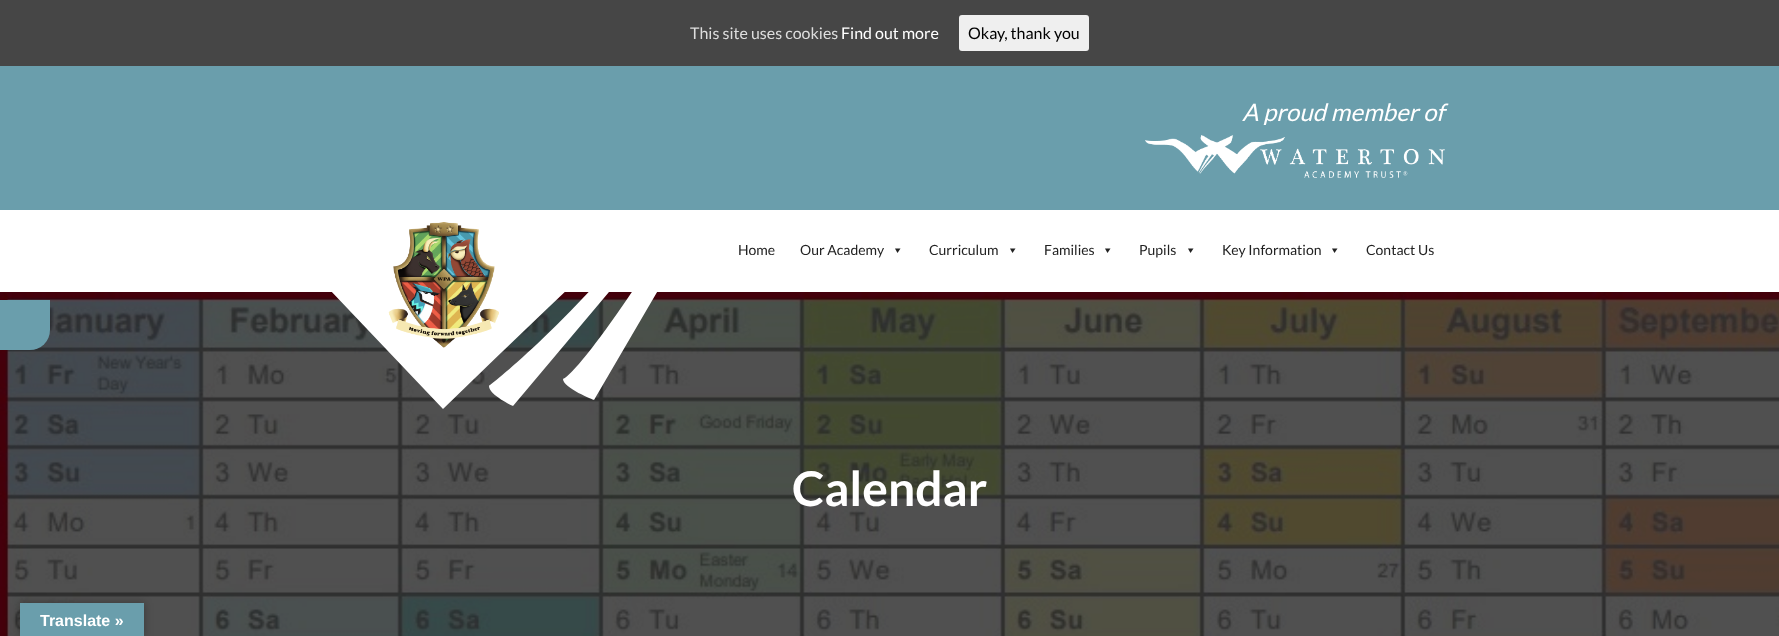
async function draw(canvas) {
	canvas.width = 1779;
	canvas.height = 636;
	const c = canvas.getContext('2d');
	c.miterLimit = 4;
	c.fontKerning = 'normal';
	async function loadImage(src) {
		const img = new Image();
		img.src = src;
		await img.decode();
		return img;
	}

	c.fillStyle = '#fff';
	c.fillRect(0, 0, 1779, 636);
	c.fillStyle = '#464646';
	c.fillRect(0, 0, 1779, 66);
	c.font = '16px Lato';
	c.fillStyle = '#ddd';
	c.fillText('This site uses cookies', 690, 39);
	c.fillStyle = '#fff';
	c.fillText('Find out more', 841, 39);
	c.fillStyle = '#efefef';
	c.beginPath();
	c.roundRect(959, 15, 130, 36, 3);
	c.fill();
	c.fillStyle = '#000';
	c.fillText('Okay, thank you', 968, 39);
	c.fillStyle = '#6a9eac';
	c.fillRect(0, 66, 1779, 144);
	c.font = 'italic 24px Lato';
	c.fillStyle = '#fff';
	c.fillText('A proud member of', 1242, 121);
	c.drawImage(await loadImage('img1.png'), 1145, 135, 300, 43);
	c.drawImage(await loadImage('img3.png'), 0, 292, 1779, 344);
	c.beginPath();
	c.moveTo(660, 210);
	c.bezierCurveTo(564, 329, 489, 386, 489, 386);
	c.bezierCurveTo(489, 395, 513, 406, 513, 406);
	c.lineTo(678, 210);
	c.closePath();
	c.fill();
	c.beginPath();
	c.moveTo(652, 210);
	c.lineTo(254, 210);
	c.lineTo(443, 409);
	c.bezierCurveTo(512, 342, 582, 275, 652, 210);
	c.closePath();
	c.fill();
	c.beginPath();
	c.moveTo(685, 210);
	c.bezierCurveTo(581, 376, 563, 379, 563, 379);
	c.bezierCurveTo(563, 388, 594, 400, 594, 400);
	c.lineTo(705, 210);
	c.closePath();
	c.fill();
	c.drawImage(await loadImage('img2.png'), 388, 222, 111, 126);
	c.font = '14px Lato';
	c.fillStyle = '#222';
	c.fillText('Home', 738, 255);
	c.fillText('Our Academy', 800, 255);
	c.beginPath();
	c.moveTo(900.5, 248.5);
	c.lineTo(897.5, 253);
	c.lineTo(895, 248.5);
	c.closePath();
	c.fill();
	c.fillText('Curriculum', 929, 255);
	c.beginPath();
	c.moveTo(1015.5, 248.5);
	c.lineTo(1012.5, 253);
	c.lineTo(1010, 248.5);
	c.closePath();
	c.fill();
	c.fillText('Families', 1044, 255);
	c.beginPath();
	c.moveTo(1110.5, 248.5);
	c.lineTo(1107.5, 253);
	c.lineTo(1105, 248.5);
	c.closePath();
	c.fill();
	c.fillText('Pupils', 1139, 255);
	c.beginPath();
	c.moveTo(1193.5, 248.5);
	c.lineTo(1190.5, 253);
	c.lineTo(1188, 248.5);
	c.closePath();
	c.fill();
	c.fillText('Key Information', 1222, 255);
	c.beginPath();
	c.moveTo(1337.5, 248.5);
	c.lineTo(1334.5, 253);
	c.lineTo(1332, 248.5);
	c.closePath();
	c.fill();
	c.fillText('Contact Us', 1366, 255);
	c.fillStyle = '#6a9eac';
	c.beginPath();
	c.roundRect(0, 300, 50, 50, [0, 0, 20, 0]);
	c.fill();
	c.font = 'bold 48px Lato';
	c.fillStyle = '#fff';
	c.fillText('Calendar', 792, 506);
	c.fillStyle = '#0000004d';
	c.filter = 'blur(4.5px)';
	c.beginPath();
	c.rect(20, 603, 124, 33);
	c.fill();
	c.filter = 'none';
	c.fillStyle = '#6a9eac';
	c.fillRect(20, 603, 124, 33);
	c.font = 'bold 16px Liberation Sans';
	c.fillStyle = '#fff';
	c.fillText('Translate »', 40, 626);
}

draw(document.querySelector('canvas'));
